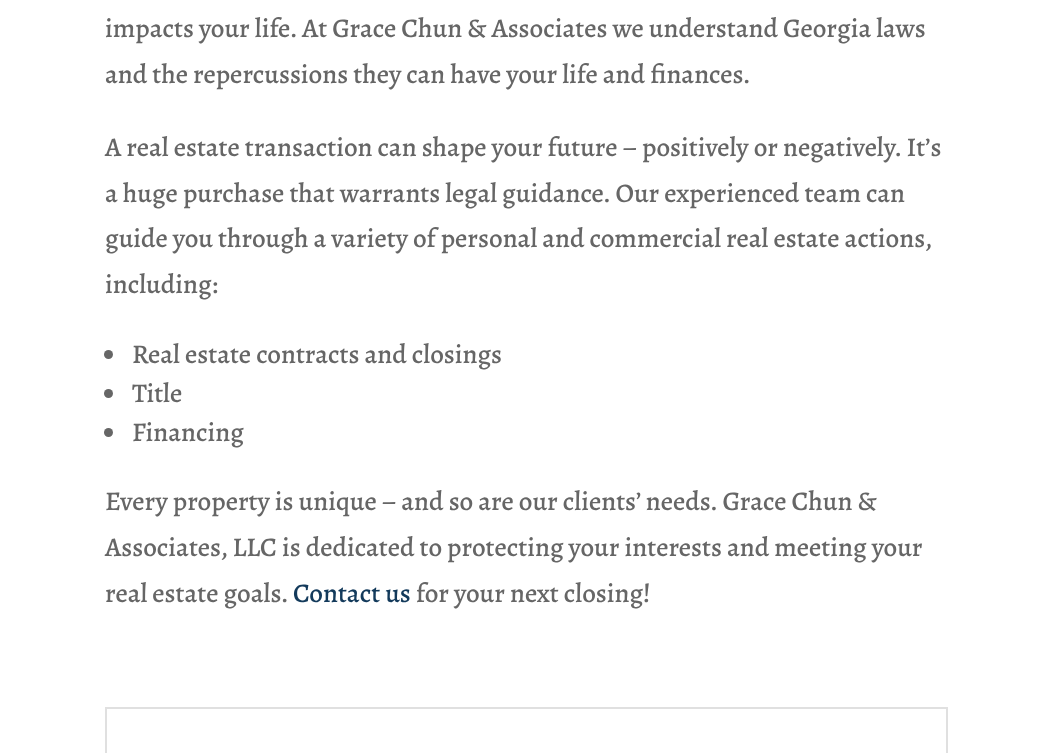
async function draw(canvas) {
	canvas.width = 1052;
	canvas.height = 753;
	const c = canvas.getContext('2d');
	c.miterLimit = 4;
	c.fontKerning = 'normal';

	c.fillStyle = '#fff';
	c.fillRect(0, 0, 1052, 753);
	c.font = '500 27px Alegreya';
	c.fillStyle = '#666';
	for (const [text, x, y] of [
		['impacts your life. At Grace Chun & Associates we understand Georgia laws', 105, 37],
		['and the repercussions they can have your life and finances.', 105, 83],
		['A real estate transaction can shape your future – positively or negatively. It’s', 105, 156],
		['a huge purchase that warrants legal guidance. Our experienced team can', 105, 202],
		['guide you through a variety of personal and commercial real estate actions,', 105, 247],
		['including:', 105, 293],
	]) {
		c.fillText(text, x, y);
	}
	c.beginPath();
	c.arc(108.5, 354.5, 4.5, 0, 2 * Math.PI);
	c.fill();
	c.fillText('Real estate contracts and closings', 132, 363);
	c.beginPath();
	c.arc(108.5, 393.5, 4.5, 0, 2 * Math.PI);
	c.fill();
	c.fillText('Title', 132, 402);
	c.beginPath();
	c.arc(108.5, 432.5, 4.5, 0, 2 * Math.PI);
	c.fill();
	for (const [text, x, y] of [
		['Financing', 132, 441],
		['Every property is unique – and so are our clients’ needs. Grace Chun &', 105, 510],
		['Associates, LLC is dedicated to protecting your interests and meeting your', 105, 556],
		['real estate goals.', 105, 602],
	]) {
		c.fillText(text, x, y);
	}
	c.fillStyle = '#133a5b';
	c.fillText('Contact us', 293, 602);
	c.fillStyle = '#666';
	c.fillText('for your next closing!', 416, 602);
	c.strokeStyle = '#e0e0e0';
	c.lineWidth = 2;
	c.strokeRect(106, 708, 841, 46);
}

draw(document.querySelector('canvas'));
